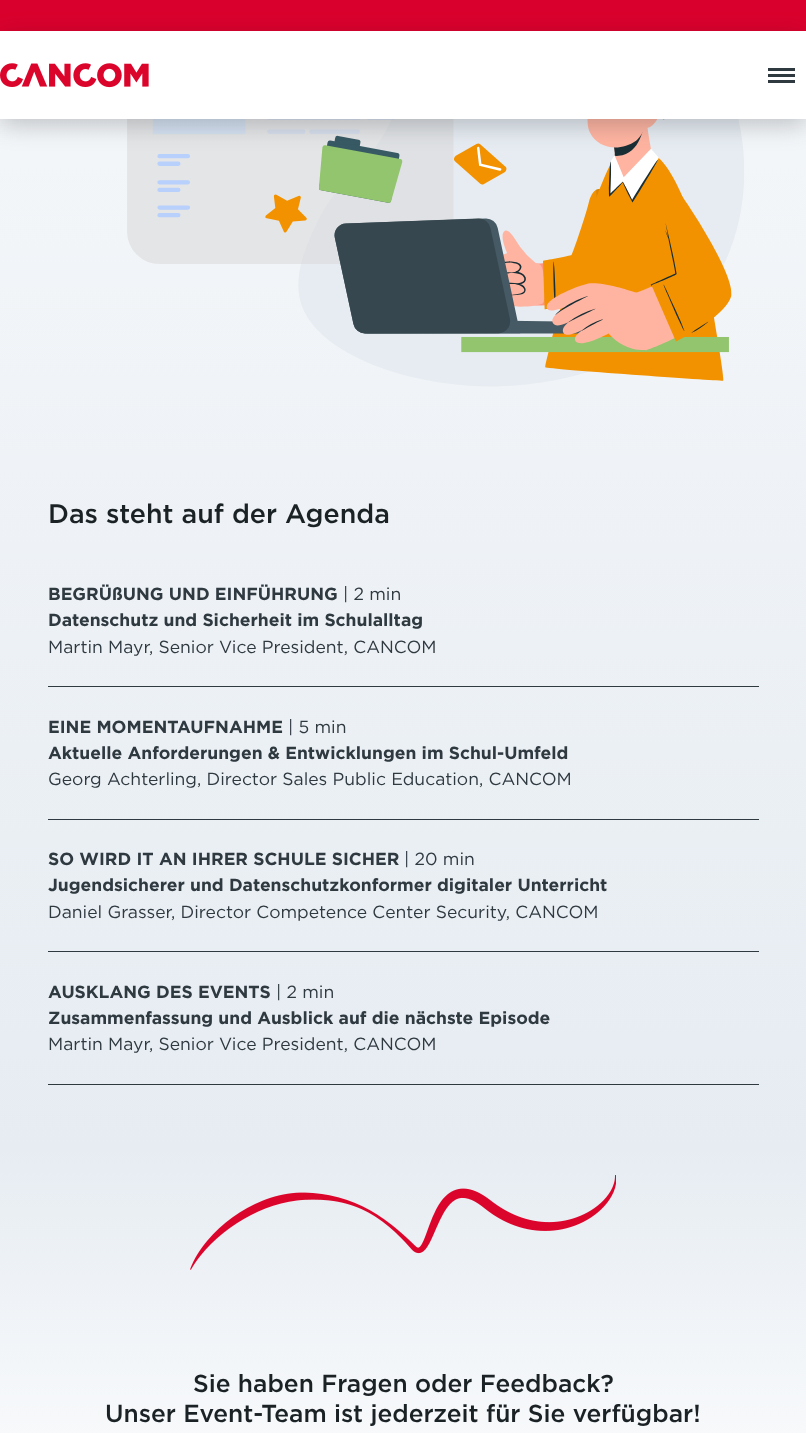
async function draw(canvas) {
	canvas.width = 806;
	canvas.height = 1433;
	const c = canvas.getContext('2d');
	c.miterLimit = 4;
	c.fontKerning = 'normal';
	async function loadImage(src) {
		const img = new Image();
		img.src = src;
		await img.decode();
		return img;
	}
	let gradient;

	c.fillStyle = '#fff';
	c.fillRect(0, 0, 806, 1433);
	c.fillStyle = '#da002d';
	c.fillRect(0, 0, 806, 31);
	gradient = c.createLinearGradient(403, 1145, 403, -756);
	gradient.addColorStop(0, '#e6ecf2');
	gradient.addColorStop(1, '#fff');
	c.fillStyle = gradient;
	c.fillRect(0, 119, 806, 1026);
	c.drawImage(await loadImage('img2.png'), 127, 119, 617, 268);
	c.fillStyle = '#1b222640';
	c.filter = 'blur(12.5px)';
	c.beginPath();
	c.rect(0, 38, 806, 87);
	c.fill();
	c.filter = 'none';
	c.fillStyle = '#fff';
	c.fillRect(0, 31, 806, 88);
	c.drawImage(await loadImage('img1.png'), 0, 63, 149, 25);
	for (const [x, y, w, h, color] of [
		[768, 80, 27, 3, '#2f3940'],
		[768, 68, 27, 3, '#2f3940'],
		[768, 74, 27, 3, '#2f3940'],
	]) {
		c.fillStyle = color;
		c.fillRect(x, y, w, h);
	}
	c.font = '300 26.75px "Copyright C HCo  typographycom"';
	c.fillStyle = '#1b2226';
	c.fillText('Das steht auf der Agenda', 48, 523);
	c.font = '17.5px "Copyright C HCo  typographycom"';
	c.fillStyle = '#2f3940';
	c.fillText('BEGRÜßUNG UND EINFÜHRUNG', 48, 600);
	c.font = '300 17.5px "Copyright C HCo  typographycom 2"';
	c.fillText('| 2 min', 343, 600);
	c.font = '17.5px "Copyright C HCo  typographycom"';
	c.fillText('Datenschutz und Sicherheit im Schulalltag', 48, 626);
	c.font = '300 17.5px "Copyright C HCo  typographycom 2"';
	c.fillText('Martin Mayr, Senior Vice President, CANCOM', 48, 653);
	c.fillRect(48, 686, 711, 1);
	c.font = '17.5px "Copyright C HCo  typographycom"';
	c.fillText('EINE MOMENTAUFNAHME', 48, 733);
	c.font = '300 17.5px "Copyright C HCo  typographycom 2"';
	c.fillText('| 5 min', 288, 733);
	c.font = '17.5px "Copyright C HCo  typographycom"';
	c.fillText('Aktuelle Anforderungen & Entwicklungen im Schul-Umfeld', 48, 759);
	c.font = '300 17.5px "Copyright C HCo  typographycom 2"';
	c.fillText('Georg Achterling, Director Sales Public Education, CANCOM', 48, 785);
	c.fillRect(48, 819, 711, 1);
	c.font = '17.5px "Copyright C HCo  typographycom"';
	c.fillText('SO WIRD IT AN IHRER SCHULE SICHER', 48, 865);
	c.font = '300 17.5px "Copyright C HCo  typographycom 2"';
	c.fillText('| 20 min', 404, 865);
	c.font = '17.5px "Copyright C HCo  typographycom"';
	c.fillText('Jugendsicherer und Datenschutzkonformer digitaler Unterricht', 48, 891);
	c.font = '300 17.5px "Copyright C HCo  typographycom 2"';
	c.fillText('Daniel Grasser, Director Competence Center Security, CANCOM', 48, 918);
	c.fillRect(48, 951, 711, 1);
	c.font = '17.5px "Copyright C HCo  typographycom"';
	c.fillText('AUSKLANG DES EVENTS', 48, 998);
	c.font = '300 17.5px "Copyright C HCo  typographycom 2"';
	c.fillText('| 2 min', 276, 998);
	c.font = '17.5px "Copyright C HCo  typographycom"';
	c.fillText('Zusammenfassung und Ausblick auf die nächste Episode', 48, 1024);
	c.font = '300 17.5px "Copyright C HCo  typographycom 2"';
	c.fillText('Martin Mayr, Senior Vice President, CANCOM', 48, 1050);
	c.fillRect(48, 1084, 711, 1);
	gradient = c.createLinearGradient(403, 1145, 403, 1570);
	gradient.addColorStop(0, '#e6ecf2');
	gradient.addColorStop(1, '#fff');
	c.fillStyle = gradient;
	c.fillRect(0, 1145, 806, 288);
	c.drawImage(await loadImage('img3.png'), 190, 1175, 426, 95);
	c.font = '300 24.5px "Copyright C HCo  typographycom"';
	c.fillStyle = '#1b2226';
	c.fillText('Sie haben Fragen oder Feedback?', 193, 1392);
	c.fillText('Unser Event-Team ist jederzeit für Sie verfügbar!', 105, 1422);
}

draw(document.querySelector('canvas'));
